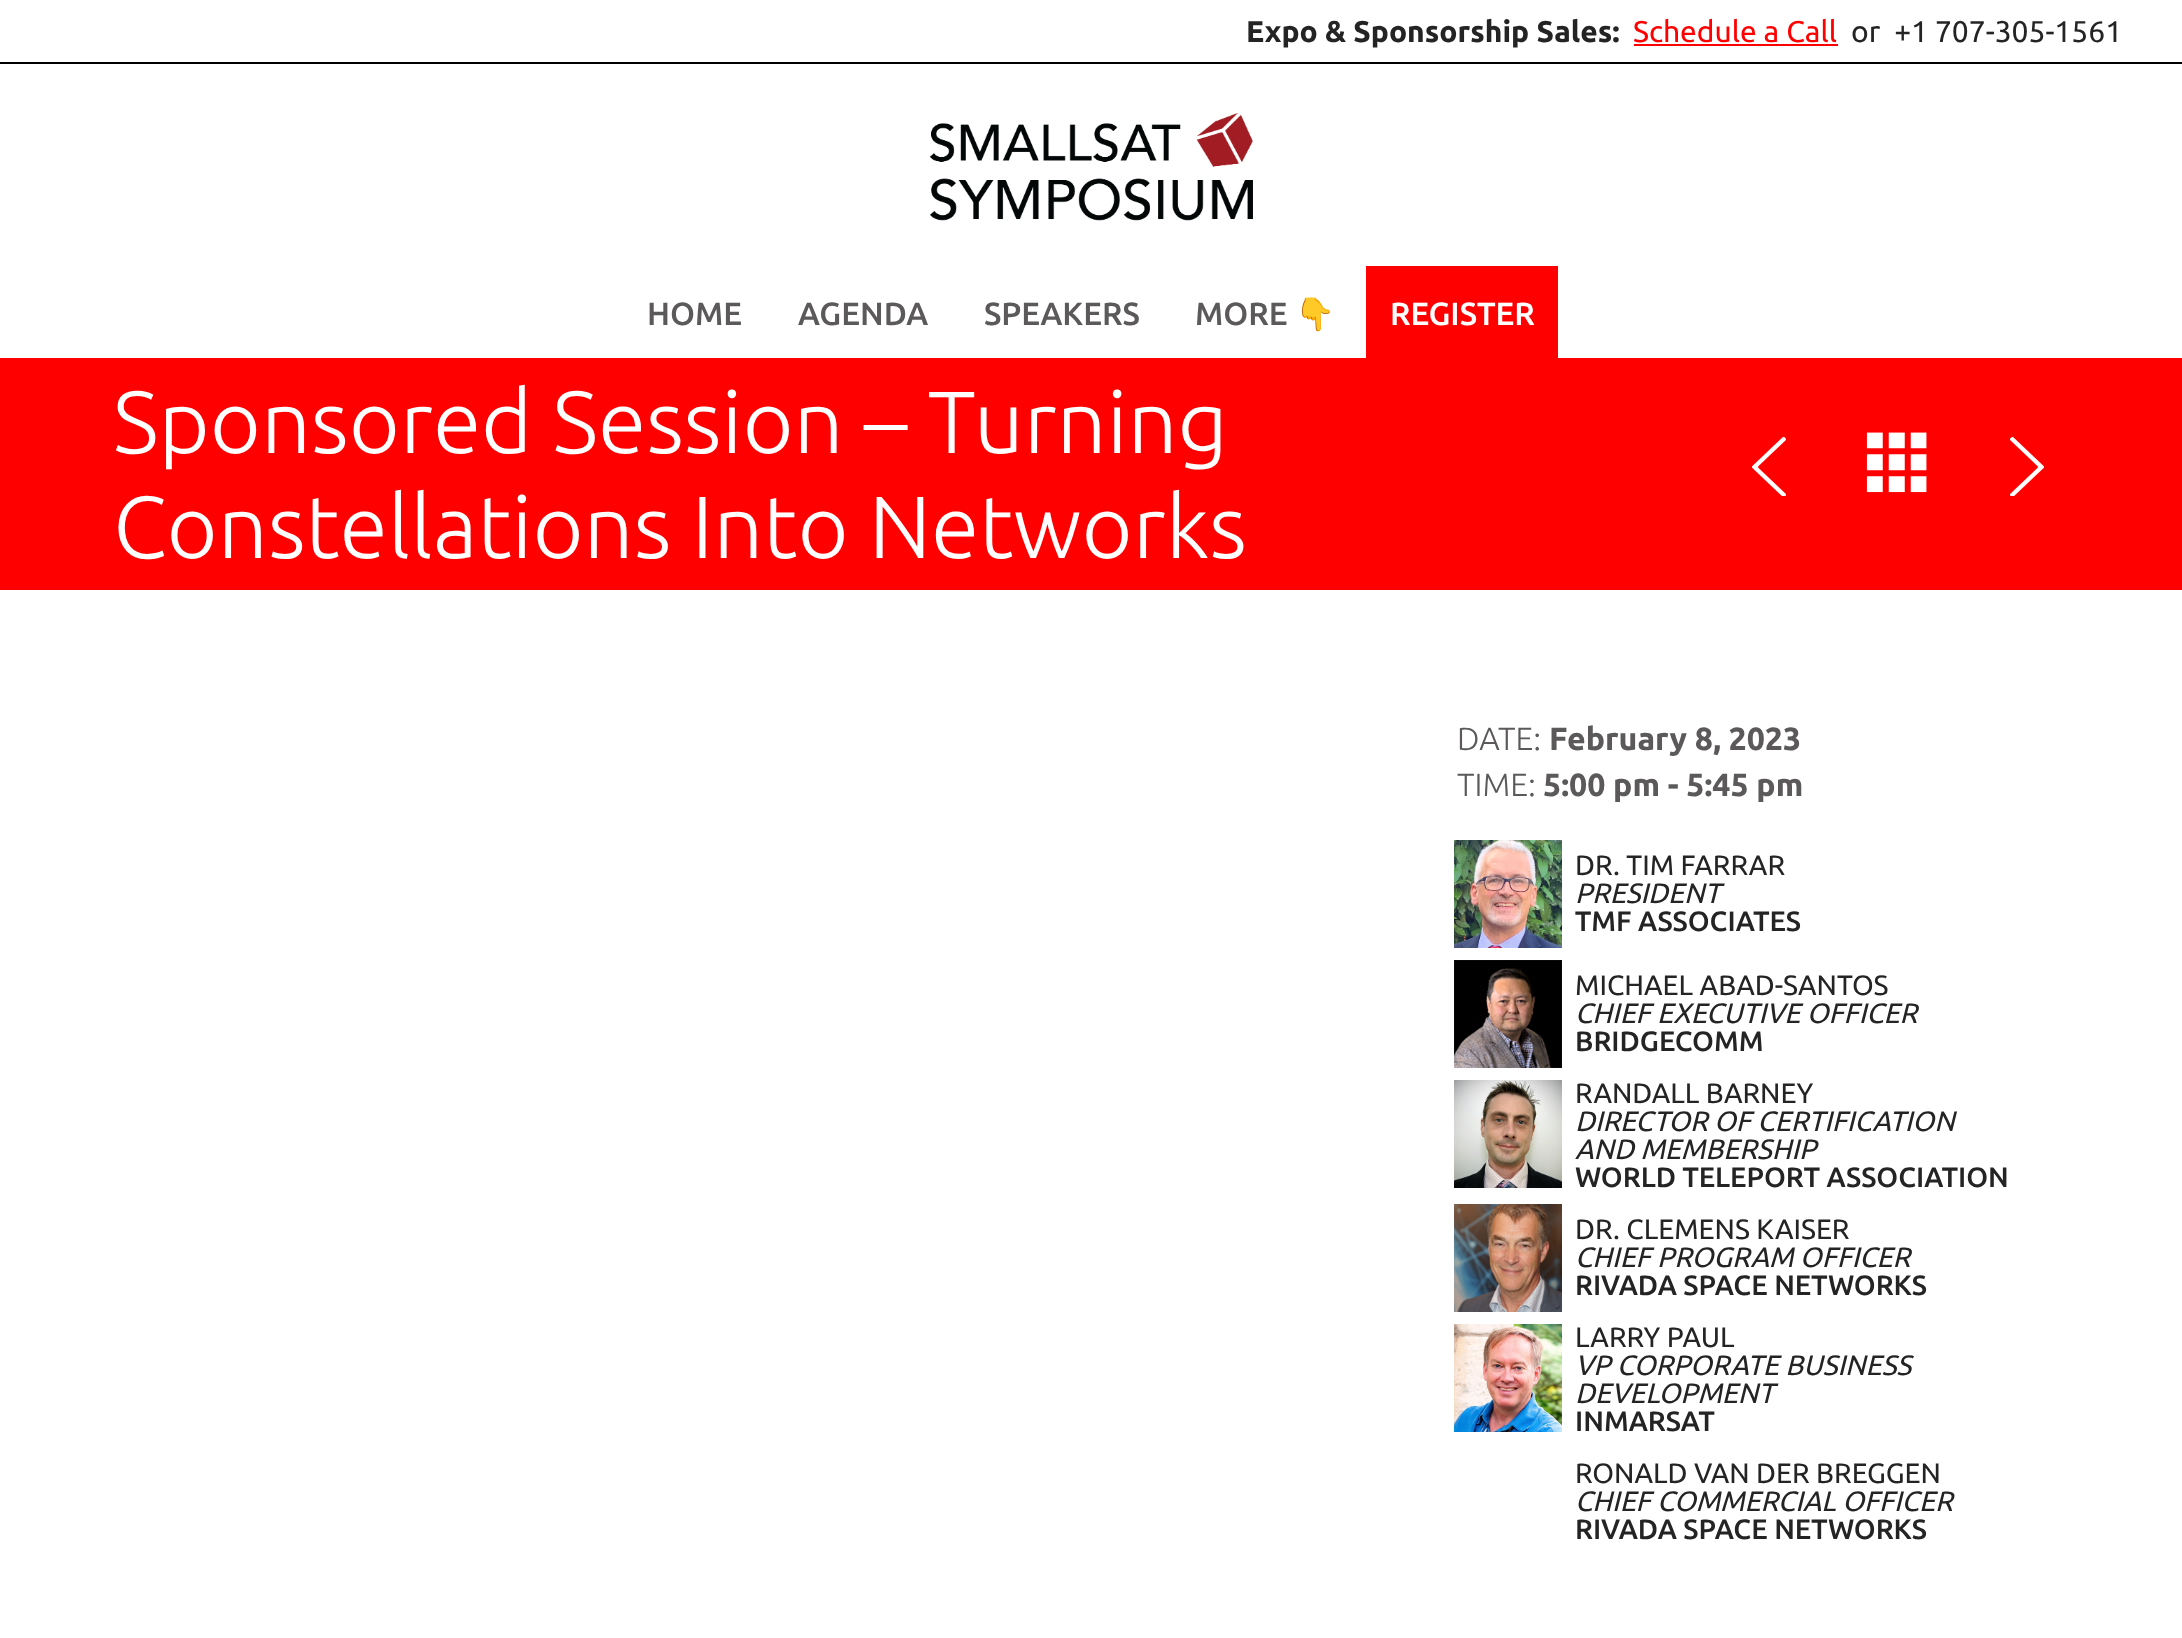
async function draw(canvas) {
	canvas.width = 2182;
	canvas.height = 1638;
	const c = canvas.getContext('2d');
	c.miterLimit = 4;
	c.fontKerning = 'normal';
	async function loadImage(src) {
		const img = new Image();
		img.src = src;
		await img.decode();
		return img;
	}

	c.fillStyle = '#fff';
	c.fillRect(0, 0, 2182, 1638);
	c.fillStyle = '#000';
	c.fillRect(0, 62, 2182, 2);
	c.font = 'bold 30px Ubuntu';
	c.fillStyle = '#242424';
	c.fillText('Expo & Sponsorship Sales:', 1246, 42);
	c.font = '30px Ubuntu';
	c.fillStyle = '#f00';
	c.fillText('Schedule a Call', 1633, 42);
	c.fillRect(1634, 44, 204, 2);
	c.fillStyle = '#242424';
	c.fillText('or  +1 707-305-1561', 1851, 42);
	c.drawImage(await loadImage('img1.png'), 929, 113, 324, 108);
	c.font = '500 32px Ubuntu';
	c.fillStyle = '#5b5959';
	for (const [text, x, y] of [
		['HOME', 647, 325],
		['AGENDA', 798, 325],
		['SPEAKERS', 984, 325],
		['MORE', 1195, 325],
	]) {
		c.fillText(text, x, y);
	}
	c.font = '32px Noto Color Emoji';
	c.fillText('👇', 1295, 325);
	c.fillStyle = '#f00';
	c.fillRect(1366, 266, 192, 92);
	c.font = '500 32px Ubuntu';
	c.fillStyle = '#fff';
	c.fillText('REGISTER', 1390, 325);
	c.fillStyle = '#f00';
	c.fillRect(0, 358, 2182, 232);
	c.font = '300 88px Ubuntu';
	c.fillStyle = '#fff';
	c.fillText('Sponsored Session – Turning', 113, 453);
	c.fillText('Constellations Into Networks', 113, 558);
	c.drawImage(await loadImage('img2.png'), 1752, 437, 34, 59);
	c.drawImage(await loadImage('img3.png'), 1866, 432, 61, 61);
	c.drawImage(await loadImage('img4.png'), 2010, 437, 34, 59);
	c.font = '300 32px Ubuntu';
	c.fillStyle = '#5b5959';
	c.fillText('DATE:', 1457, 750);
	c.font = 'bold 32px Ubuntu';
	c.fillText('February 8, 2023', 1549, 750);
	c.font = '300 32px Ubuntu';
	c.fillText('TIME:', 1457, 796);
	c.font = 'bold 32px Ubuntu';
	c.fillText('5:00 pm - 5:45 pm', 1543, 796);
	c.drawImage(await loadImage('img5.png'), 1454, 840, 108, 108);
	c.font = '28px Ubuntu';
	c.fillStyle = '#242424';
	c.fillText('DR. TIM FARRAR', 1575, 875);
	c.font = 'italic 28px Ubuntu';
	c.fillText('PRESIDENT', 1575, 903);
	c.font = '500 28px Ubuntu';
	c.fillText('TMF ASSOCIATES', 1575, 931);
	c.drawImage(await loadImage('img6.png'), 1454, 960, 108, 108);
	c.font = '28px Ubuntu';
	c.fillText('MICHAEL ABAD-SANTOS', 1575, 995);
	c.font = 'italic 28px Ubuntu';
	c.fillText('CHIEF EXECUTIVE OFFICER', 1575, 1023);
	c.font = '500 28px Ubuntu';
	c.fillText('BRIDGECOMM', 1575, 1051);
	c.drawImage(await loadImage('img7.png'), 1454, 1080, 108, 108);
	c.font = '28px Ubuntu';
	c.fillText('RANDALL BARNEY', 1575, 1103);
	c.font = 'italic 28px Ubuntu';
	c.fillText('DIRECTOR OF CERTIFICATION', 1575, 1131);
	c.fillText('AND MEMBERSHIP', 1575, 1159);
	c.font = '500 28px Ubuntu';
	c.fillText('WORLD TELEPORT ASSOCIATION', 1575, 1187);
	c.drawImage(await loadImage('img8.png'), 1454, 1204, 108, 108);
	c.font = '28px Ubuntu';
	c.fillText('DR. CLEMENS KAISER', 1575, 1239);
	c.font = 'italic 28px Ubuntu';
	c.fillText('CHIEF PROGRAM OFFICER', 1575, 1267);
	c.font = '500 28px Ubuntu';
	c.fillText('RIVADA SPACE NETWORKS', 1575, 1295);
	c.drawImage(await loadImage('img9.png'), 1454, 1324, 108, 108);
	c.font = '28px Ubuntu';
	c.fillText('LARRY PAUL', 1575, 1347);
	c.font = 'italic 28px Ubuntu';
	c.fillText('VP CORPORATE BUSINESS', 1575, 1375);
	c.fillText('DEVELOPMENT', 1575, 1403);
	c.font = '500 28px Ubuntu';
	c.fillText('INMARSAT', 1575, 1431);
	c.font = '28px Ubuntu';
	c.fillText('RONALD VAN DER BREGGEN', 1575, 1483);
	c.font = 'italic 28px Ubuntu';
	c.fillText('CHIEF COMMERCIAL OFFICER', 1575, 1511);
	c.font = '500 28px Ubuntu';
	c.fillText('RIVADA SPACE NETWORKS', 1575, 1539);
}

draw(document.querySelector('canvas'));
